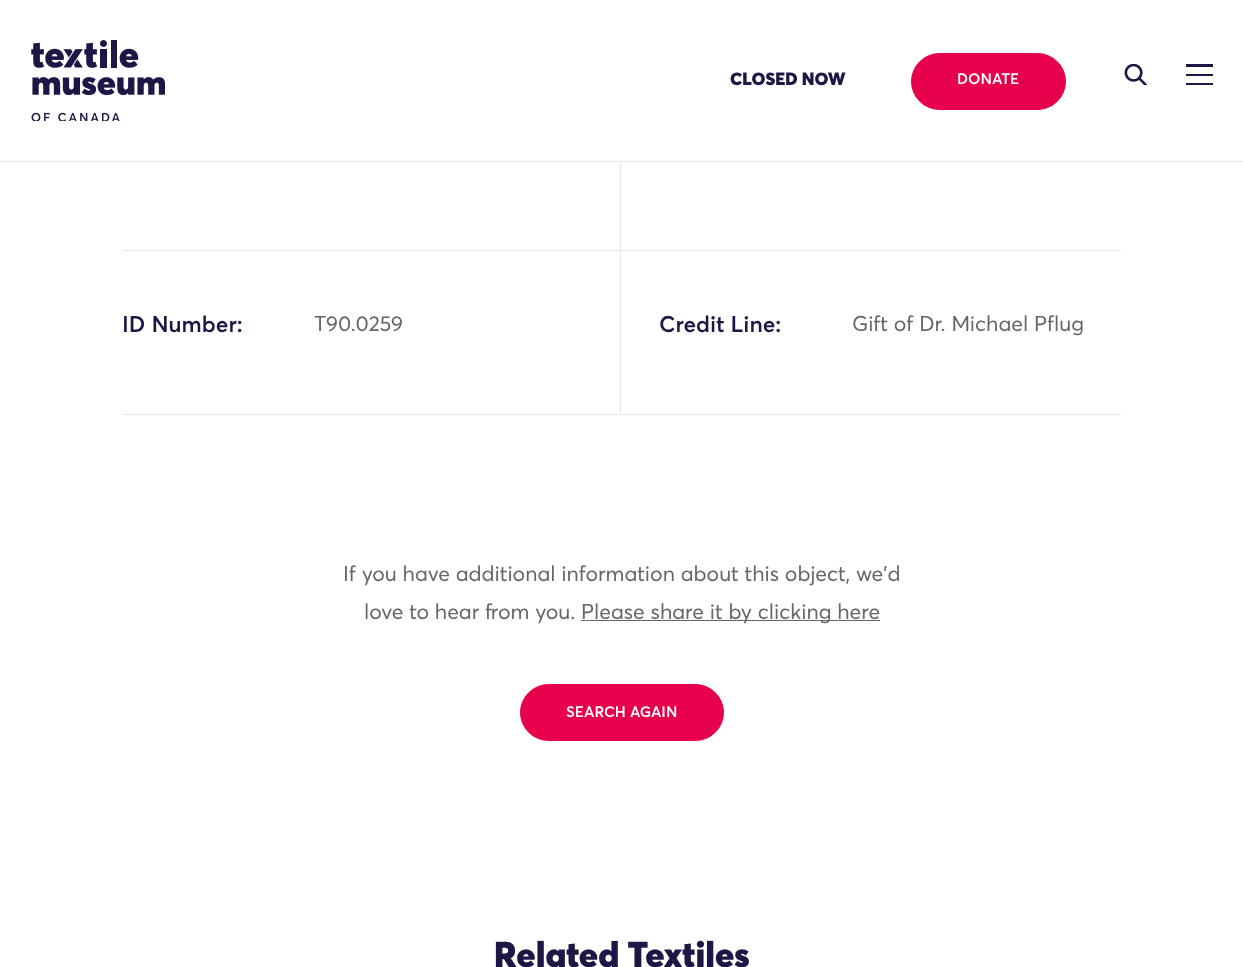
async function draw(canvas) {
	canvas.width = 1243;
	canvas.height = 967;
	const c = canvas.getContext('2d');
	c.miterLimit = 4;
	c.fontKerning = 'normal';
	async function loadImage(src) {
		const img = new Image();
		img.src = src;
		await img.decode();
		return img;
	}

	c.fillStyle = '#fff';
	c.fillRect(0, 0, 1243, 967);
	c.fillStyle = '#e6e6e6';
	c.fillRect(0, 161, 1243, 1);
	c.drawImage(await loadImage('img1.png'), 31, 40, 134, 81);
	c.font = '17.5px "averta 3"';
	c.fillStyle = '#1f1646';
	c.fillText('CLOSED NOW', 730, 85);
	c.fillStyle = '#e7004c';
	c.beginPath();
	c.roundRect(911.5, 53.5, 154, 56, 28);
	c.fill();
	c.strokeStyle = '#e7004c';
	c.stroke();
	c.font = '15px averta';
	c.fillStyle = '#fff';
	c.fillText('DONATE', 957, 84);
	c.drawImage(await loadImage('img2.png'), 1124, 64, 23, 21);
	for (const [x, y, w, h, color] of [
		[1186, 83, 27, 2, '#1f1646'],
		[1186, 74, 27, 2, '#1f1646'],
		[1186, 64, 27, 3, '#1f1646'],
		[123, 414, 998, 1, '#e6e6e6'],
		[620, 163, 1, 87, '#e6e6e6'],
		[123, 250, 998, 1, '#e6e6e6'],
		[620, 250, 1, 164, '#e6e6e6'],
	]) {
		c.fillStyle = color;
		c.fillRect(x, y, w, h);
	}
	c.font = '22.5px averta';
	c.fillStyle = '#1f1646';
	c.fillText('ID Number:', 122, 332);
	c.font = '21.25px "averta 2"';
	c.fillStyle = '#666';
	c.fillText('T90.0259', 314, 331);
	c.font = '22.5px averta';
	c.fillStyle = '#1f1646';
	c.fillText('Credit Line:', 659, 332);
	c.font = '21.25px "averta 2"';
	c.fillStyle = '#666';
	for (const [text, x, y] of [
		['Gift of Dr. Michael Pflug', 852, 331],
		['If you have additional information about this object, we\'d', 343, 581],
		['love to hear from you.', 364, 619],
	]) {
		c.fillText(text, x, y);
	}
	c.fillRect(581, 620, 299, 1);
	c.fillText('Please share it by clicking here', 581, 619);
	c.fillStyle = '#e7004c';
	c.beginPath();
	c.roundRect(520.5, 684.5, 203, 56, 28);
	c.fill();
	c.stroke();
	c.font = '15px averta';
	c.fillStyle = '#fff';
	c.fillText('SEARCH AGAIN', 566, 717);
	c.font = '35.5px "averta 3"';
	c.fillStyle = '#1f1646';
	c.fillText('Related Textiles', 494, 967);
}

draw(document.querySelector('canvas'));
